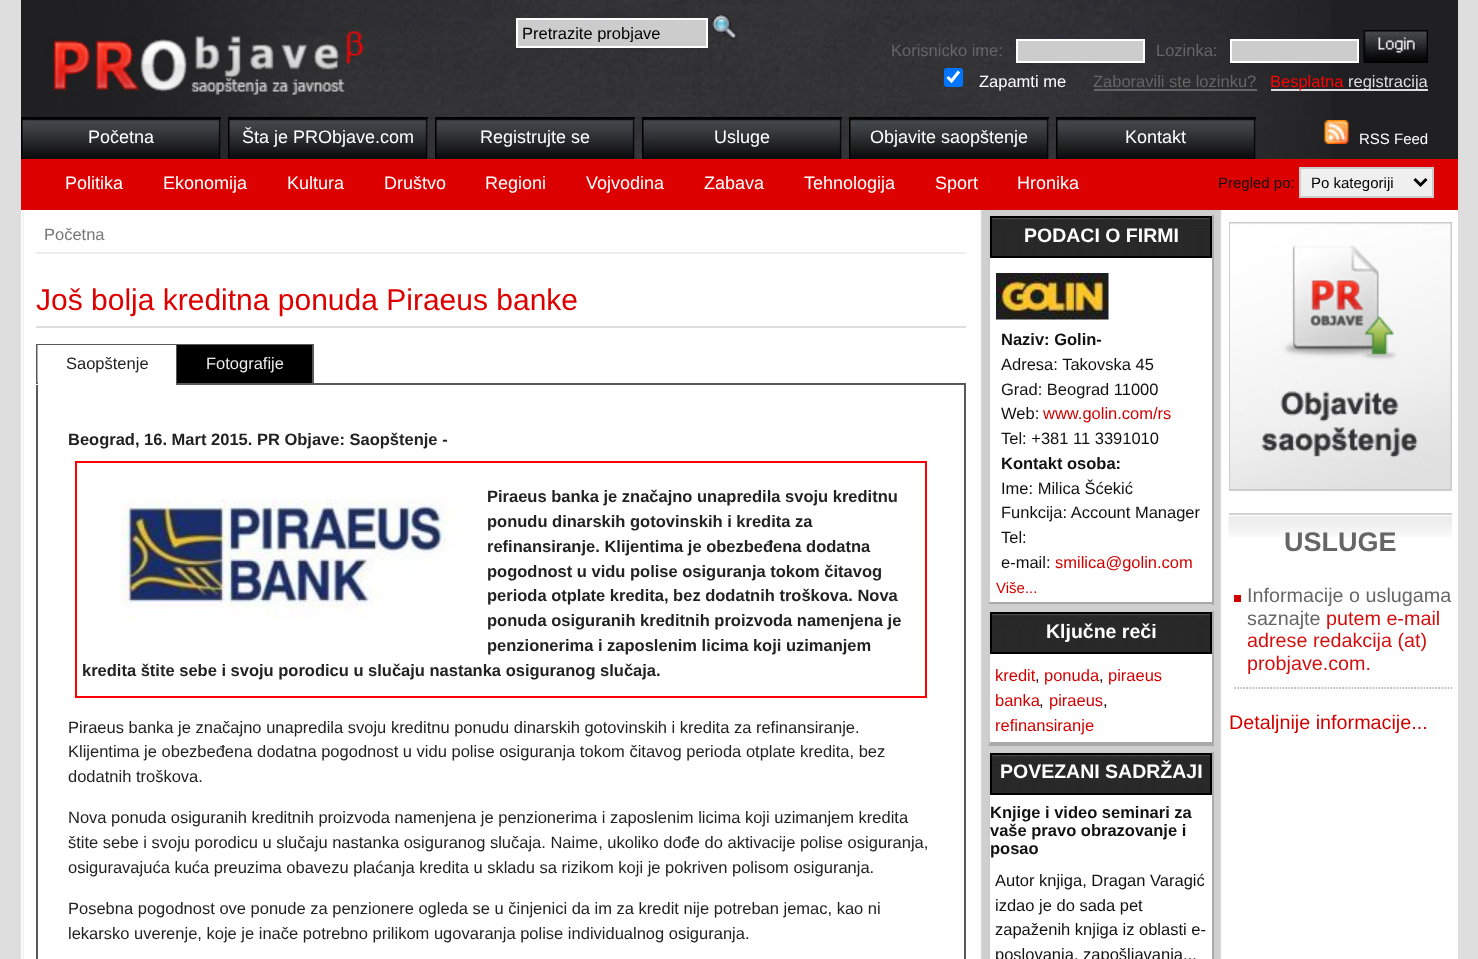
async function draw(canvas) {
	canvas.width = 1478;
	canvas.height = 959;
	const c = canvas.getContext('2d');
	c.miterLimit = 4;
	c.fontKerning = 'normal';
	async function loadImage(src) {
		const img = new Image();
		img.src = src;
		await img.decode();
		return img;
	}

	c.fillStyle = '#dedede';
	c.fillRect(0, 0, 1478, 959);
	c.fillStyle = '#fff';
	c.fillRect(21, 210, 1437, 749);
	c.drawImage(await loadImage('img1.png'), 22, 210, 1200, 749);
	c.fillStyle = '#202022';
	c.fillRect(21, 0, 1437, 159);
	c.drawImage(await loadImage('img2.png'), 45, 0, 1286, 159);
	c.fillStyle = '#ccc';
	c.beginPath();
	c.rect(517, 19, 190, 28);
	c.fill();
	c.strokeStyle = '#fff';
	c.lineWidth = 2;
	c.stroke();
	c.save();
	c.beginPath();
	c.rect(522, 24, 180, 18);
	c.clip();
	c.font = '16.5px Liberation Sans';
	c.fillStyle = '#000';
	c.fillText('Pretrazite probjave', 522, 39);
	c.restore();
	c.drawImage(await loadImage('img3.png'), 712, 15, 25, 24);
	c.drawImage(await loadImage('img4.png'), 21, 119, 200, 40);
	c.fillStyle = '#000';
	c.fillRect(21, 117, 200, 2);
	c.font = '18px Liberation Sans';
	c.fillStyle = '#fff';
	c.fillText('Početna', 88, 143);
	c.drawImage(await loadImage('img5.png'), 228, 119, 200, 40);
	c.fillStyle = '#000';
	c.fillRect(228, 117, 200, 2);
	c.fillStyle = '#fff';
	c.fillText('Šta je PRObjave.com', 242, 143);
	c.drawImage(await loadImage('img6.png'), 435, 119, 200, 40);
	c.fillStyle = '#000';
	c.fillRect(435, 117, 200, 2);
	c.fillStyle = '#fff';
	c.fillText('Registrujte se', 480, 143);
	c.drawImage(await loadImage('img7.png'), 642, 119, 200, 40);
	c.fillStyle = '#000';
	c.fillRect(642, 117, 200, 2);
	c.fillStyle = '#fff';
	c.fillText('Usluge', 714, 143);
	c.drawImage(await loadImage('img8.png'), 849, 119, 200, 40);
	c.fillStyle = '#000';
	c.fillRect(849, 117, 200, 2);
	c.fillStyle = '#fff';
	c.fillText('Objavite saopštenje', 870, 143);
	c.drawImage(await loadImage('img9.png'), 1056, 119, 200, 40);
	c.fillStyle = '#000';
	c.fillRect(1056, 117, 200, 2);
	c.fillStyle = '#fff';
	c.fillText('Kontakt', 1125, 143);
	c.fillStyle = '#d00';
	c.fillRect(21, 159, 1437, 51);
	c.fillStyle = '#fff';
	for (const [text, x, y] of [
		['Politika', 65, 189],
		['Ekonomija', 163, 189],
		['Kultura', 287, 189],
		['Društvo', 384, 189],
		['Regioni', 485, 189],
		['Vojvodina', 586, 189],
		['Zabava', 704, 189],
		['Tehnologija', 804, 189],
		['Sport', 935, 189],
		['Hronika', 1017, 189],
	]) {
		c.fillText(text, x, y);
	}
	c.font = '15px Liberation Sans';
	c.fillStyle = '#111';
	c.fillText('Pregled po:', 1218, 188);
	c.fillStyle = '#efefef';
	c.beginPath();
	c.rect(1300, 168, 133, 29);
	c.fill();
	c.strokeStyle = '#ccc';
	c.stroke();
	c.beginPath();
	c.moveTo(1414.5, 179);
	c.lineTo(1420.5, 185);
	c.lineTo(1426.5, 179);
	c.strokeStyle = '#000';
	c.lineWidth = 3;
	c.stroke();
	c.fillStyle = '#000';
	c.fillText('Po kategoriji', 1311, 188);
	c.font = '16.5px Liberation Sans';
	c.fillStyle = '#666';
	c.fillText('Korisnicko ime:', 891, 56);
	c.fillStyle = '#ccc';
	c.beginPath();
	c.rect(1017, 40, 127, 22);
	c.fill();
	c.strokeStyle = '#fff';
	c.lineWidth = 2;
	c.stroke();
	c.fillStyle = '#666';
	c.fillText('Lozinka:', 1156, 56);
	c.fillStyle = '#ccc';
	c.beginPath();
	c.rect(1231, 40, 127, 22);
	c.fill();
	c.stroke();
	c.drawImage(await loadImage('img10.png'), 1363, 30, 65, 33);
	c.fillStyle = '#0075ff';
	c.beginPath();
	c.roundRect(944, 68, 19, 19, 3);
	c.fill();
	c.beginPath();
	c.moveTo(947.5, 77);
	c.lineTo(951.5, 81);
	c.lineTo(959, 71.5);
	c.lineWidth = 3.1;
	c.stroke();
	c.fillStyle = '#fff';
	c.fillText('Zapamti me', 979, 87);
	c.fillStyle = '#666';
	c.fillText('Zaboravili ste lozinku?', 1093, 87);
	c.fillRect(1094, 89, 163, 2);
	c.fillStyle = '#ddd';
	c.fillRect(1271, 89, 157, 2);
	c.fillStyle = '#f00';
	c.fillText('Besplatna', 1270, 87);
	c.fillStyle = '#ddd';
	c.fillText('registracija', 1348, 87);
	c.drawImage(await loadImage('img11.png'), 1324, 120, 25, 24);
	c.font = '15px Liberation Sans';
	c.fillStyle = '#fff';
	c.fillText('RSS Feed', 1359, 144);
	c.fillStyle = '#eee';
	c.fillRect(36, 252, 930, 2);
	c.font = '16.5px Liberation Sans';
	c.fillStyle = '#777';
	c.fillText('Početna', 44, 240);
	c.fillStyle = '#dedede';
	c.fillRect(36, 326, 930, 2);
	c.font = '30px Liberation Sans';
	c.fillStyle = '#d00';
	c.fillText('Još bolja kreditna ponuda Piraeus banke', 36, 310);
	c.strokeStyle = '#595959';
	c.lineWidth = 2;
	c.strokeRect(37, 384, 928, 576);
	for (const [x, y, w, h, color] of [
		[312, 344, 2, 40, '#595959'],
		[36, 344, 276, 1, '#595959'],
		[36, 383, 140, 2, '#fff'],
		[36, 344, 2, 40, '#595959'],
	]) {
		c.fillStyle = color;
		c.fillRect(x, y, w, h);
	}
	c.drawImage(await loadImage('img12.png'), 37, 345, 1, 38);
	c.font = '16.5px Liberation Sans';
	c.fillStyle = '#222';
	c.fillText('Saopštenje', 66, 369);
	c.fillStyle = '#595959';
	c.fillRect(176, 344, 2, 40);
	c.fillStyle = '#000';
	c.fillRect(177, 345, 135, 38);
	c.fillStyle = '#ebebeb';
	c.fillText('Fotografije', 206, 369);
	c.font = 'bold 16.5px Liberation Sans';
	c.fillStyle = '#222';
	c.fillText('Beograd, 16. Mart 2015. PR Objave: Saopštenje -', 68, 445);
	c.strokeStyle = '#f00';
	c.strokeRect(76, 462, 850, 235);
	for (const [text, x, y] of [
		['Piraeus banka je značajno unapredila svoju kreditnu', 487, 502],
		['ponudu dinarskih gotovinskih i kredita za', 487, 527],
		['refinansiranje. Klijentima je obezbeđena dodatna', 487, 552],
		['pogodnost u vidu polise osiguranja tokom čitavog', 487, 577],
		['perioda otplate kredita, bez dodatnih troškova. Nova', 487, 601],
		['ponuda osiguranih kreditnih proizvoda namenjena je', 487, 626],
		['penzionerima i zaposlenim licima koji uzimanjem', 487, 651],
		['kredita štite sebe i svoju porodicu u slučaju nastanka osiguranog slučaja.', 82, 676],
	]) {
		c.fillText(text, x, y);
	}
	c.drawImage(await loadImage('img13.png'), 120, 499, 338, 121);
	c.font = '16.5px Liberation Sans';
	for (const [text, x, y] of [
		['Piraeus banka je značajno unapredila svoju kreditnu ponudu dinarskih gotovinskih i kredita za refinansiranje.', 68, 733],
		['Klijentima je obezbeđena dodatna pogodnost u vidu polise osiguranja tokom čitavog perioda otplate kredita, bez', 68, 757],
		['dodatnih troškova.', 68, 782],
		['Nova ponuda osiguranih kreditnih proizvoda namenjena je penzionerima i zaposlenim licima koji uzimanjem kredita', 68, 823],
		['štite sebe i svoju porodicu u slučaju nastanka osiguranog slučaja. Naime, ukoliko dođe do aktivacije polise osiguranja,', 68, 848],
		['osiguravajuća kuća preuzima obavezu plaćanja kredita u skladu sa rizikom koji je pokriven polisom osiguranja.', 68, 873],
		['Posebna pogodnost ove ponude za penzionere ogleda se u činjenici da im za kredit nije potreban jemac, kao ni', 68, 914],
		['lekarsko uverenje, koje je inače potrebno prilikom ugovaranja polise individualnog osiguranja.', 68, 939],
	]) {
		c.fillText(text, x, y);
	}
	for (const [x, y, w, h, color] of [
		[990, 258, 222, 344, '#fff'],
		[989, 215, 225, 1, '#ccc'],
		[1212, 215, 2, 390, '#aaa'],
	]) {
		c.fillStyle = color;
		c.fillRect(x, y, w, h);
	}
	c.beginPath();
	c.moveTo(1214, 604);
	c.lineTo(988, 604);
	c.lineTo(990, 602);
	c.lineTo(1212, 602);
	c.closePath();
	c.fill();
	c.fillStyle = '#ccc';
	c.beginPath();
	c.moveTo(988, 604);
	c.lineTo(988, 214);
	c.lineTo(990, 216);
	c.lineTo(990, 602);
	c.closePath();
	c.fill();
	c.drawImage(await loadImage('img14.png'), 992, 218, 218, 38);
	c.strokeStyle = '#000';
	c.strokeRect(991, 217, 220, 40);
	c.font = 'bold 19.5px Liberation Sans';
	c.fillStyle = '#fff';
	c.fillText('PODACI O FIRMI', 1024, 242);
	c.drawImage(await loadImage('img15.png'), 996, 273, 113, 47);
	c.font = 'bold 16.5px Liberation Sans';
	c.fillStyle = '#111';
	c.fillText('Naziv: Golin-', 1001, 345);
	c.font = '16.5px Liberation Sans';
	for (const [text, x, y] of [
		['Adresa: Takovska 45', 1001, 370],
		['Grad: Beograd 11000', 1001, 395],
		['Web:', 1001, 419],
	]) {
		c.fillText(text, x, y);
	}
	c.fillStyle = '#d10000';
	c.fillText('www.golin.com/rs', 1043, 419);
	c.fillStyle = '#111';
	c.fillText('Tel: +381 11 3391010', 1001, 444);
	c.font = 'bold 16.5px Liberation Sans';
	c.fillText('Kontakt osoba:', 1001, 469);
	c.font = '16.5px Liberation Sans';
	for (const [text, x, y] of [
		['Ime: Milica Šćekić', 1001, 494],
		['Funkcija: Account Manager', 1001, 518],
		['Tel:', 1001, 543],
		['e-mail:', 1001, 568],
	]) {
		c.fillText(text, x, y);
	}
	c.fillStyle = '#d10000';
	c.fillText('smilica@golin.com', 1055, 568);
	c.font = '15px Liberation Sans';
	c.fillText('Više...', 996, 593);
	for (const [x, y, w, h, color] of [
		[990, 654, 222, 88, '#fff'],
		[989, 611, 225, 1, '#ccc'],
		[1212, 611, 2, 135, '#aaa'],
	]) {
		c.fillStyle = color;
		c.fillRect(x, y, w, h);
	}
	c.beginPath();
	c.moveTo(1214, 746);
	c.lineTo(988, 746);
	c.lineTo(990, 742);
	c.lineTo(1212, 742);
	c.closePath();
	c.fill();
	c.fillStyle = '#ccc';
	c.beginPath();
	c.moveTo(988, 746);
	c.lineTo(988, 610);
	c.lineTo(990, 612);
	c.lineTo(990, 742);
	c.closePath();
	c.fill();
	c.drawImage(await loadImage('img16.png'), 992, 614, 218, 38);
	c.strokeRect(991, 613, 220, 40);
	c.font = 'bold 19.5px Liberation Sans';
	c.fillStyle = '#fff';
	c.fillText('Ključne reči', 1046, 638);
	c.font = '16.5px Liberation Sans';
	c.fillStyle = '#d10000';
	c.fillText('kredit', 995, 681);
	c.fillStyle = '#111';
	c.fillText(',', 1035, 681);
	c.fillStyle = '#d10000';
	c.fillText('ponuda', 1044, 681);
	c.fillStyle = '#111';
	c.fillText(',', 1099, 681);
	c.fillStyle = '#d10000';
	c.fillText('piraeus', 1108, 681);
	c.fillText('banka', 995, 706);
	c.fillStyle = '#111';
	c.fillText(',', 1039, 706);
	c.fillStyle = '#d10000';
	c.fillText('piraeus', 1049, 706);
	c.fillStyle = '#111';
	c.fillText(',', 1103, 706);
	c.fillStyle = '#d10000';
	c.fillText('refinansiranje', 995, 731);
	for (const [x, y, w, h, color] of [
		[990, 795, 222, 164, '#fff'],
		[989, 752, 225, 1, '#ccc'],
		[1212, 752, 2, 207, '#aaa'],
	]) {
		c.fillStyle = color;
		c.fillRect(x, y, w, h);
	}
	c.fillStyle = '#ccc';
	c.beginPath();
	c.moveTo(988, 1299);
	c.lineTo(988, 752);
	c.lineTo(990, 753);
	c.lineTo(990, 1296);
	c.closePath();
	c.fill();
	c.drawImage(await loadImage('img17.png'), 992, 755, 218, 38);
	c.strokeRect(991, 754, 220, 40);
	c.font = 'bold 19.5px Liberation Sans';
	c.fillStyle = '#fff';
	c.fillText('POVEZANI SADRŽAJI', 1000, 778);
	c.font = 'bold 16.5px Liberation Sans';
	c.fillStyle = '#111';
	for (const [text, x, y] of [
		['Knjige i video seminari za', 990, 818],
		['vaše pravo obrazovanje i', 990, 836],
		['posao', 990, 854],
	]) {
		c.fillText(text, x, y);
	}
	c.font = '16.5px Liberation Sans';
	for (const [text, x, y] of [
		['Autor knjiga, Dragan Varagić', 995, 886],
		['izdao je do sada pet', 995, 911],
		['zapaženih knjiga iz oblasti e-', 995, 935],
		['poslovanja, zapošljavanja...', 995, 960],
	]) {
		c.fillText(text, x, y);
	}
	c.strokeStyle = '#ccc';
	c.strokeRect(1230, 223, 221, 267);
	c.drawImage(await loadImage('img18.png'), 1230, 223, 221, 266);
	c.drawImage(await loadImage('img19.png'), 1228, 516, 224, 21);
	c.fillStyle = '#d2d2d2';
	c.fillRect(1229, 513, 223, 2);
	c.font = 'bold 27px Liberation Sans';
	c.fillStyle = '#666';
	c.fillText('USLUGE', 1284, 551);
	c.fillStyle = '#d00000';
	c.fillRect(1234, 595, 7, 7);
	c.beginPath();
	c.moveTo(1234.5, 688);
	c.lineTo(1452, 688);
	c.strokeStyle = '#a4a4a4';
	c.lineWidth = 1.5;
	c.setLineDash([1.5, 1.5]);
	c.stroke();
	c.font = '19.75px Liberation Sans';
	c.fillStyle = '#666';
	c.fillText('Informacije o uslugama', 1247, 602);
	c.fillText('saznajte', 1247, 625);
	c.fillStyle = '#d20f0f';
	for (const [text, x, y] of [
		['putem e-mail', 1326, 625],
		['adrese redakcija (at)', 1247, 647],
		['probjave.com.', 1247, 670],
	]) {
		c.fillText(text, x, y);
	}
	c.fillStyle = '#d10000';
	c.fillText('Detaljnije informacije...', 1229, 729);
}

draw(document.querySelector('canvas'));
